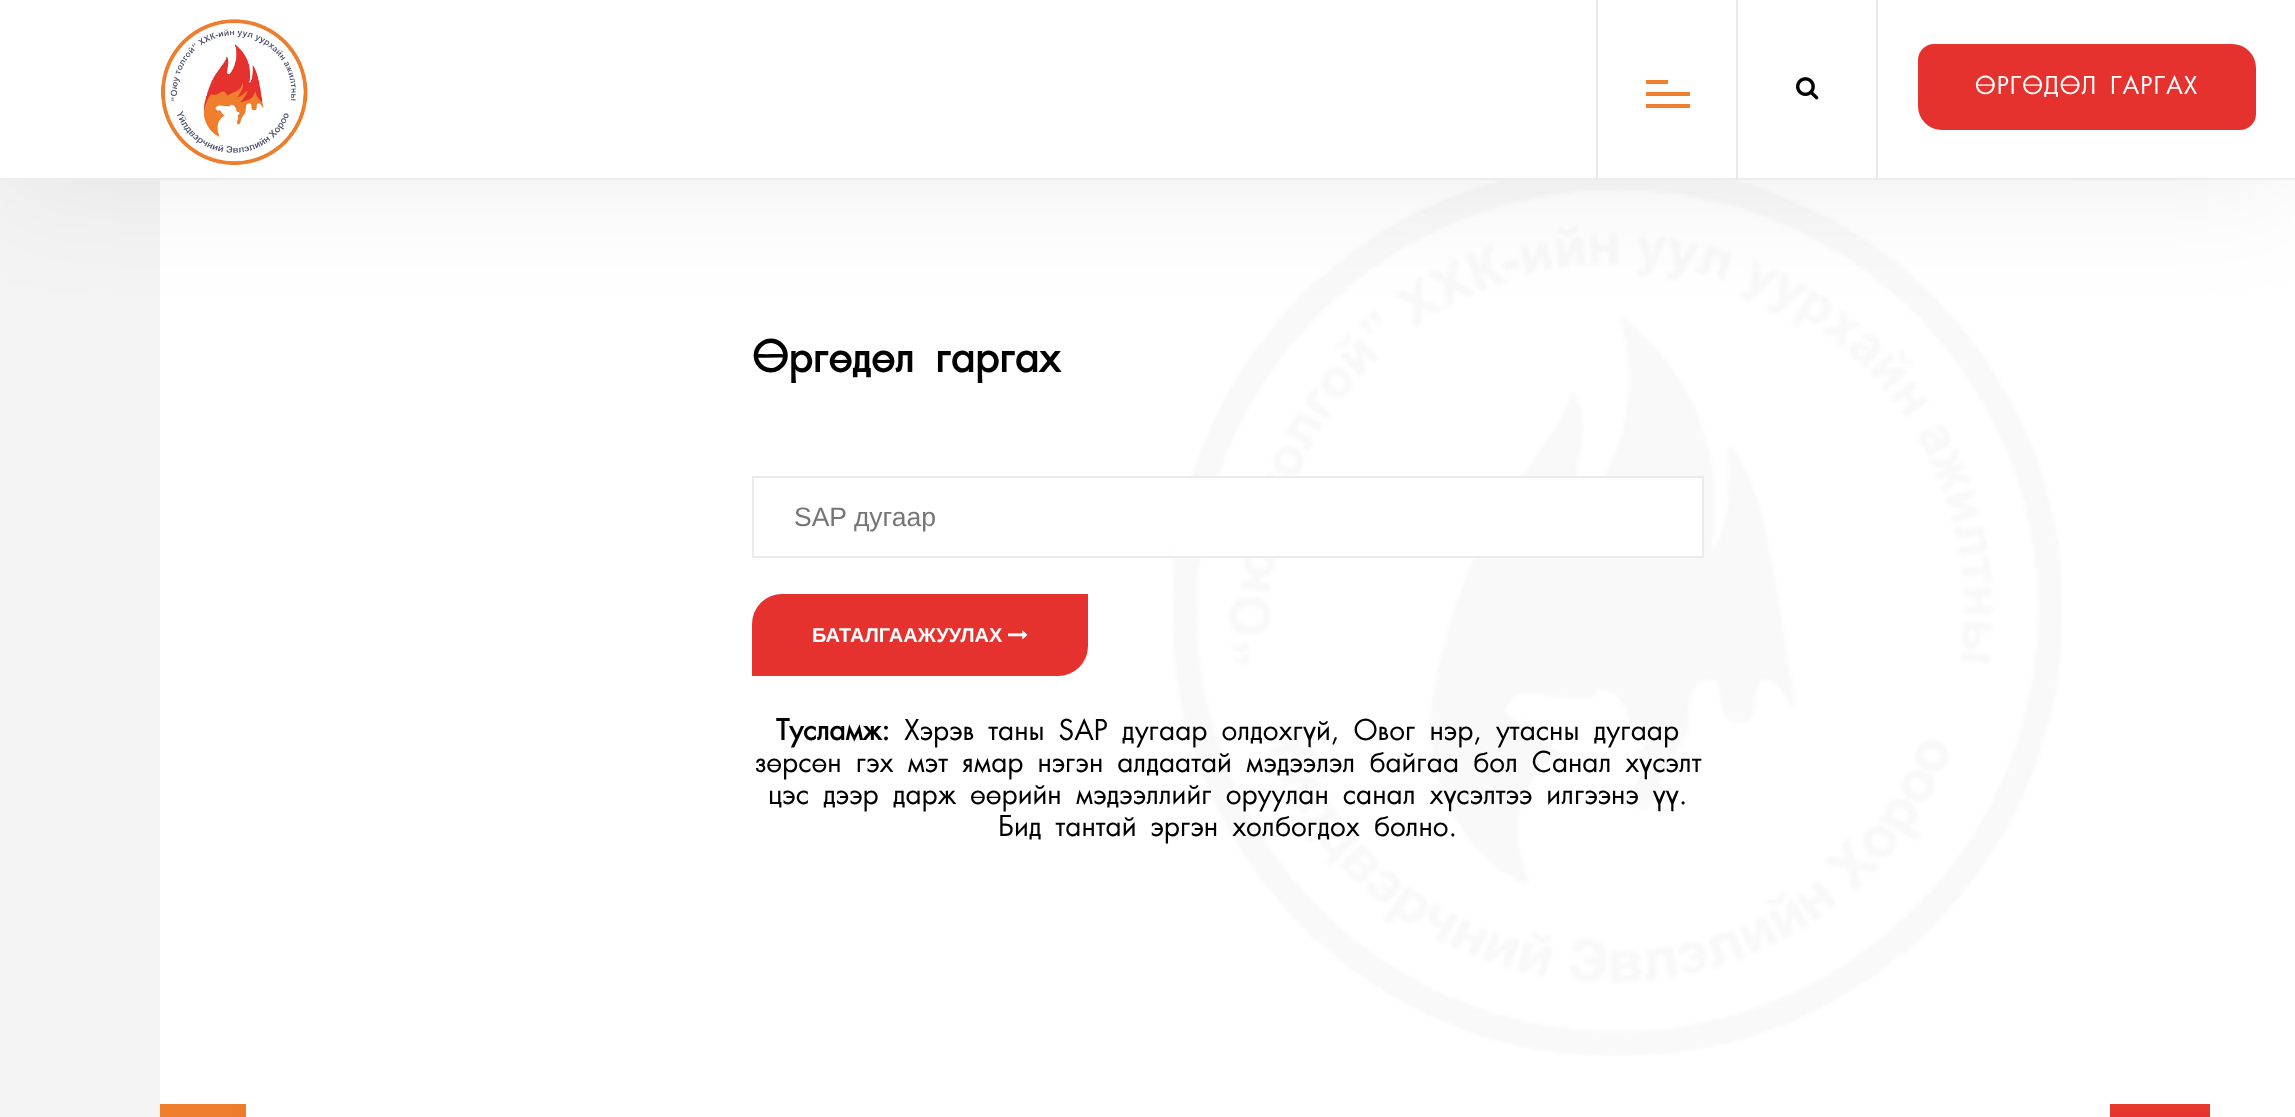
async function draw(canvas) {
	canvas.width = 2295;
	canvas.height = 1117;
	const c = canvas.getContext('2d');
	c.miterLimit = 4;
	c.fontKerning = 'normal';
	async function loadImage(src) {
		const img = new Image();
		img.src = src;
		await img.decode();
		return img;
	}
	let gradient;

	c.fillStyle = '#f4f4f4';
	c.fillRect(0, 0, 2295, 1117);
	c.fillStyle = '#fff';
	c.fillRect(160, 180, 2135, 924);
	c.drawImage(await loadImage('img3.png'), 1173, 180, 889, 876);
	c.fillStyle = '#00000012';
	c.filter = 'blur(65px)';
	c.beginPath();
	c.rect(0, 0, 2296, 180);
	c.fill();
	c.filter = 'none';
	c.fillStyle = '#fff';
	c.fillRect(0, 0, 2295, 178);
	c.fillStyle = '#eee';
	c.fillRect(225, 178, 1846, 1);
	c.drawImage(await loadImage('img1.png'), 160, 19, 148, 147);
	for (const [x, y, w, h, color] of [
		[1596, 0, 2, 180, '#e6eaea'],
		[1646, 80, 22, 4, '#ef7f2d'],
		[1646, 92, 44, 4, '#ef7f2d'],
		[1646, 104, 44, 4, '#ef7f2d'],
		[1736, 0, 2, 180, '#e6eaea'],
	]) {
		c.fillStyle = color;
		c.fillRect(x, y, w, h);
	}
	c.drawImage(await loadImage('img2.png'), 1796, 77, 23, 23);
	c.fillRect(1876, 0, 2, 180);
	c.fillStyle = '#e5322e';
	c.beginPath();
	c.roundRect(1918, 44, 338, 86, [16, 24, 16, 24]);
	c.fill();
	c.letterSpacing = '1px';
	c.font = '24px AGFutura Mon';
	c.fillStyle = '#fff';
	c.fillText('ӨРГӨДӨЛ ГАРГАХ', 1975, 94);
	c.letterSpacing = '0px';
	c.font = 'bold 42px AGFutura Mon';
	c.fillStyle = '#000';
	c.fillText('Өргөдөл гаргах', 752, 372);
	c.fillStyle = '#fff';
	c.fillRect(1175, 478, 527, 78);
	c.strokeStyle = '#ebebeb';
	c.lineWidth = 2;
	c.strokeRect(753, 477, 950, 80);
	c.font = '26.5px Liberation Sans';
	c.fillStyle = '#757575';
	c.fillText('SAP дугаар', 794, 526);
	c.fillStyle = '#e5322e';
	c.beginPath();
	c.roundRect(752, 594, 336, 82, [30, 0, 30, 0]);
	c.fill();
	c.font = 'bold 20px Liberation Sans';
	c.fillStyle = '#fff';
	c.fillText('БАТАЛГААЖУУЛАХ', 812, 642);
	c.drawImage(await loadImage('img4.png'), 1008, 630, 20, 10);
	c.font = 'bold 28px AGFutura Mon';
	c.fillStyle = '#000';
	c.fillText('Тусламж:', 776, 740);
	c.font = '28px AGFutura Mon';
	for (const [text, x, y] of [
		['Хэрэв таны SAP дугаар олдохгүй, Овог нэр, утасны дугаар', 904, 740],
		['зөрсөн гэх мэт ямар нэгэн алдаатай мэдээлэл байгаа бол Санал хүсэлт', 755, 772],
		['цэс дээр дарж өөрийн мэдээллийг оруулан санал хүсэлтээ илгээнэ үү.', 768, 804],
		['Бид тантай эргэн холбогдох болно.', 998, 836],
	]) {
		c.fillText(text, x, y);
	}
	gradient = c.createLinearGradient(160, 602, 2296, 602);
	gradient.addColorStop(0, '#ef7f2d');
	gradient.addColorStop(1, '#e5322e');
	c.fillStyle = gradient;
	c.fillRect(160, 1104, 86, 13);
	c.fillStyle = '#fff';
	c.fillRect(246, 1104, 1864, 13);
	gradient = c.createLinearGradient(2160, 978, 2160, 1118);
	gradient.addColorStop(0, '#ef7f2d');
	gradient.addColorStop(1, '#e5322e');
	c.fillStyle = gradient;
	c.fillRect(2110, 1104, 100, 13);
	c.fillStyle = '#fff';
	c.fillRect(2210, 1104, 85, 13);
}

draw(document.querySelector('canvas'));
